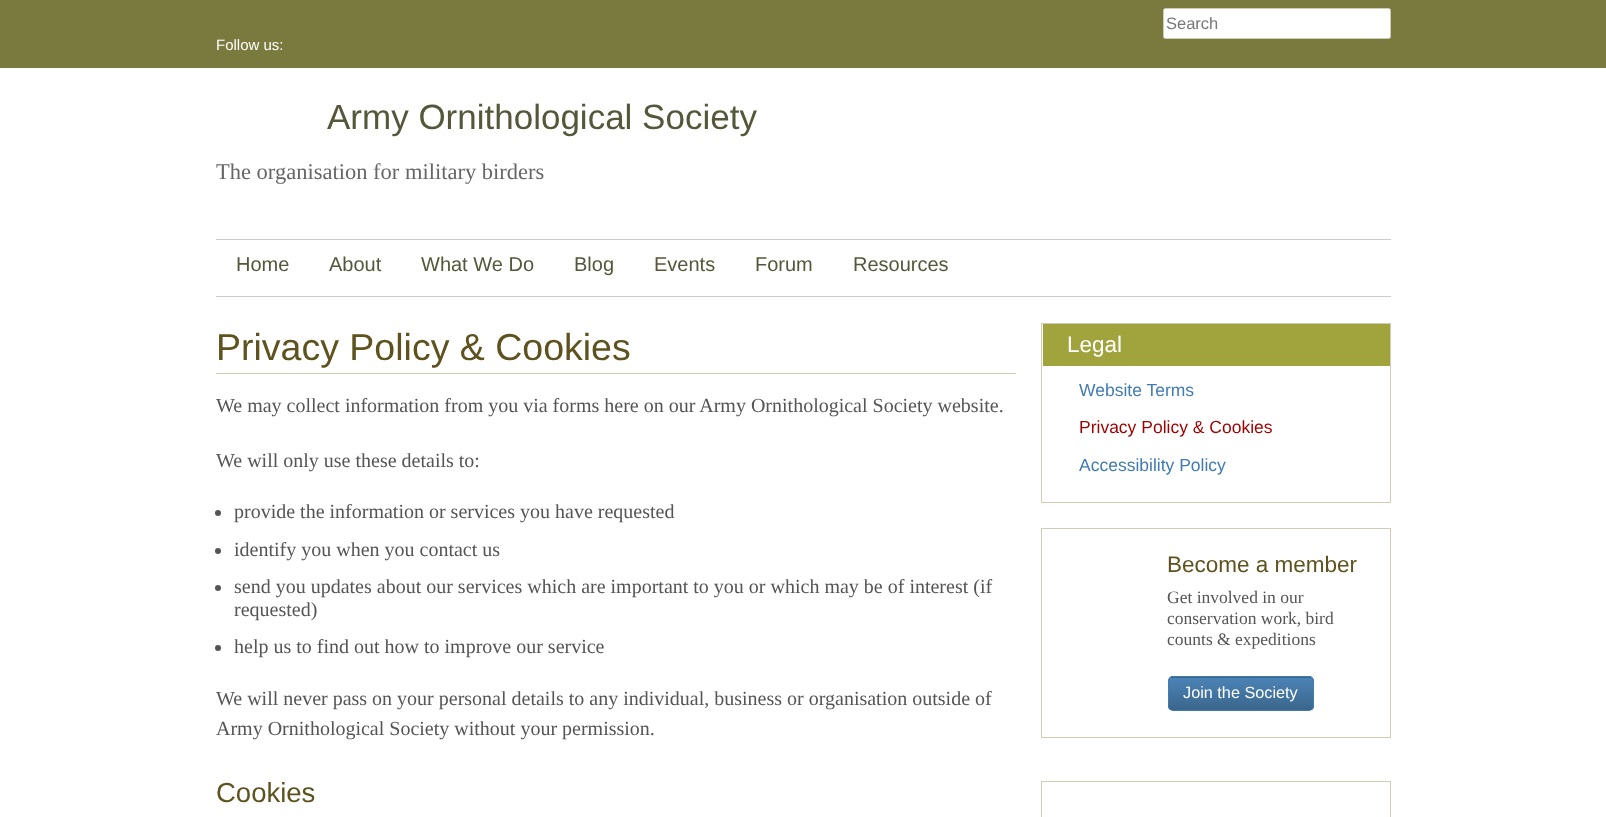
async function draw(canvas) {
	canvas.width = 1606;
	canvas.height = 817;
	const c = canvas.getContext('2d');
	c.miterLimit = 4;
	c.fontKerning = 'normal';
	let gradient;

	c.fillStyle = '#7b7a3e';
	c.fillRect(0, 0, 1606, 817);
	c.fillStyle = '#fff';
	c.beginPath();
	c.roundRect(1163.5, 8.5, 227, 30, 2);
	c.fill();
	c.strokeStyle = '#d2cbb5';
	c.stroke();
	c.font = '16.5px Liberation Sans';
	c.fillStyle = '#777';
	c.fillText('Search', 1166, 29);
	c.font = '15px Liberation Sans';
	c.fillStyle = '#fff';
	c.fillText('Follow us:', 216, 50);
	c.fillRect(0, 68, 1606, 749);
	c.font = '35px Liberation Sans';
	c.fillStyle = '#545739';
	c.fillText('Army Ornithological Society', 327, 129);
	c.font = '22.5px Liberation Serif';
	c.fillStyle = '#666';
	c.fillText('The organisation for military birders', 216, 179);
	c.fillStyle = '#ccc';
	c.fillRect(216, 239, 1175, 1);
	c.fillRect(216, 296, 1175, 1);
	c.font = '20px Liberation Sans';
	c.fillStyle = '#545739';
	for (const [text, x, y] of [
		['Home', 236, 271],
		['About', 329, 271],
		['What We Do', 421, 271],
		['Blog', 574, 271],
		['Events', 654, 271],
		['Forum', 755, 271],
		['Resources', 853, 271],
	]) {
		c.fillText(text, x, y);
	}
	c.fillStyle = '#d2cbb5';
	c.fillRect(216, 373, 800, 1);
	c.font = '37.5px Liberation Sans';
	c.fillStyle = '#5e521e';
	c.fillText('Privacy Policy & Cookies', 216, 360);
	c.font = '20px Liberation Serif';
	c.fillStyle = '#555';
	c.fillText('We may collect information from you via forms here on our Army Ornithological Society website.', 216, 412);
	c.fillText('We will only use these details to:', 216, 467);
	c.beginPath();
	c.arc(218, 513, 3, 0, 2 * Math.PI);
	c.fill();
	c.fillText('provide the information or services you have requested', 234, 518);
	c.beginPath();
	c.arc(218, 551, 3, 0, 2 * Math.PI);
	c.fill();
	c.fillText('identify you when you contact us', 234, 556);
	c.beginPath();
	c.arc(218, 588, 3, 0, 2 * Math.PI);
	c.fill();
	c.fillText('send you updates about our services which are important to you or which may be of interest (if', 234, 593);
	c.fillText('requested)', 234, 616);
	c.beginPath();
	c.arc(218, 648, 3, 0, 2 * Math.PI);
	c.fill();
	for (const [text, x, y] of [
		['help us to find out how to improve our service', 234, 653],
		['We will never pass on your personal details to any individual, business or organisation outside of', 216, 705],
		['Army Ornithological Society without your permission.', 216, 735],
	]) {
		c.fillText(text, x, y);
	}
	c.font = '27.5px Liberation Sans';
	c.fillStyle = '#5e521e';
	c.fillText('Cookies', 216, 802);
	c.strokeRect(1041.5, 323.5, 349, 179);
	c.fillStyle = '#a1a33d';
	c.fillRect(1043, 324, 347, 42);
	c.font = '22.5px Liberation Sans';
	c.fillStyle = '#fff';
	c.fillText('Legal', 1067, 352);
	c.font = '17.5px Liberation Sans';
	c.fillStyle = '#407bb1';
	c.fillText('Website Terms', 1079, 396);
	c.fillStyle = '#9f0000';
	c.fillText('Privacy Policy & Cookies', 1079, 433);
	c.fillStyle = '#407bb1';
	c.fillText('Accessibility Policy', 1079, 471);
	c.strokeRect(1041.5, 528.5, 349, 209);
	c.font = '22.5px Liberation Sans';
	c.fillStyle = '#5e521e';
	c.fillText('Become a member', 1167, 572);
	c.font = '17.5px Liberation Serif';
	c.fillStyle = '#555';
	for (const [text, x, y] of [
		['Get involved in our', 1167, 603],
		['conservation work, bird', 1167, 624],
		['counts & expeditions', 1167, 645],
	]) {
		c.fillText(text, x, y);
	}
	c.save();
	c.beginPath();
	c.roundRect(1168, 676, 146, 35, 5);
	c.clip();
	gradient = c.createLinearGradient(1241, 645, 1241, 678);
	gradient.addColorStop(0, '#4b83b5');
	gradient.addColorStop(1, '#3b668c');
	c.fillStyle = gradient;
	c.fillRect(1168, 676, 146, 2);
	gradient = c.createLinearGradient(1241, 678, 1241, 710);
	gradient.addColorStop(0, '#4b83b5');
	gradient.addColorStop(1, '#3b668c');
	c.fillStyle = gradient;
	c.fillRect(1168, 678, 146, 32);
	c.restore();
	c.beginPath();
	c.roundRect(1168.5, 676.5, 145, 34, 4.5);
	c.strokeStyle = '#417cb1';
	c.stroke();
	c.font = '16.25px Liberation Sans';
	c.fillStyle = '#fff';
	c.fillText('Join the Society', 1183, 698);
	c.strokeStyle = '#d2cbb5';
	c.strokeRect(1041.5, 781.5, 349, 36);
}

draw(document.querySelector('canvas'));
